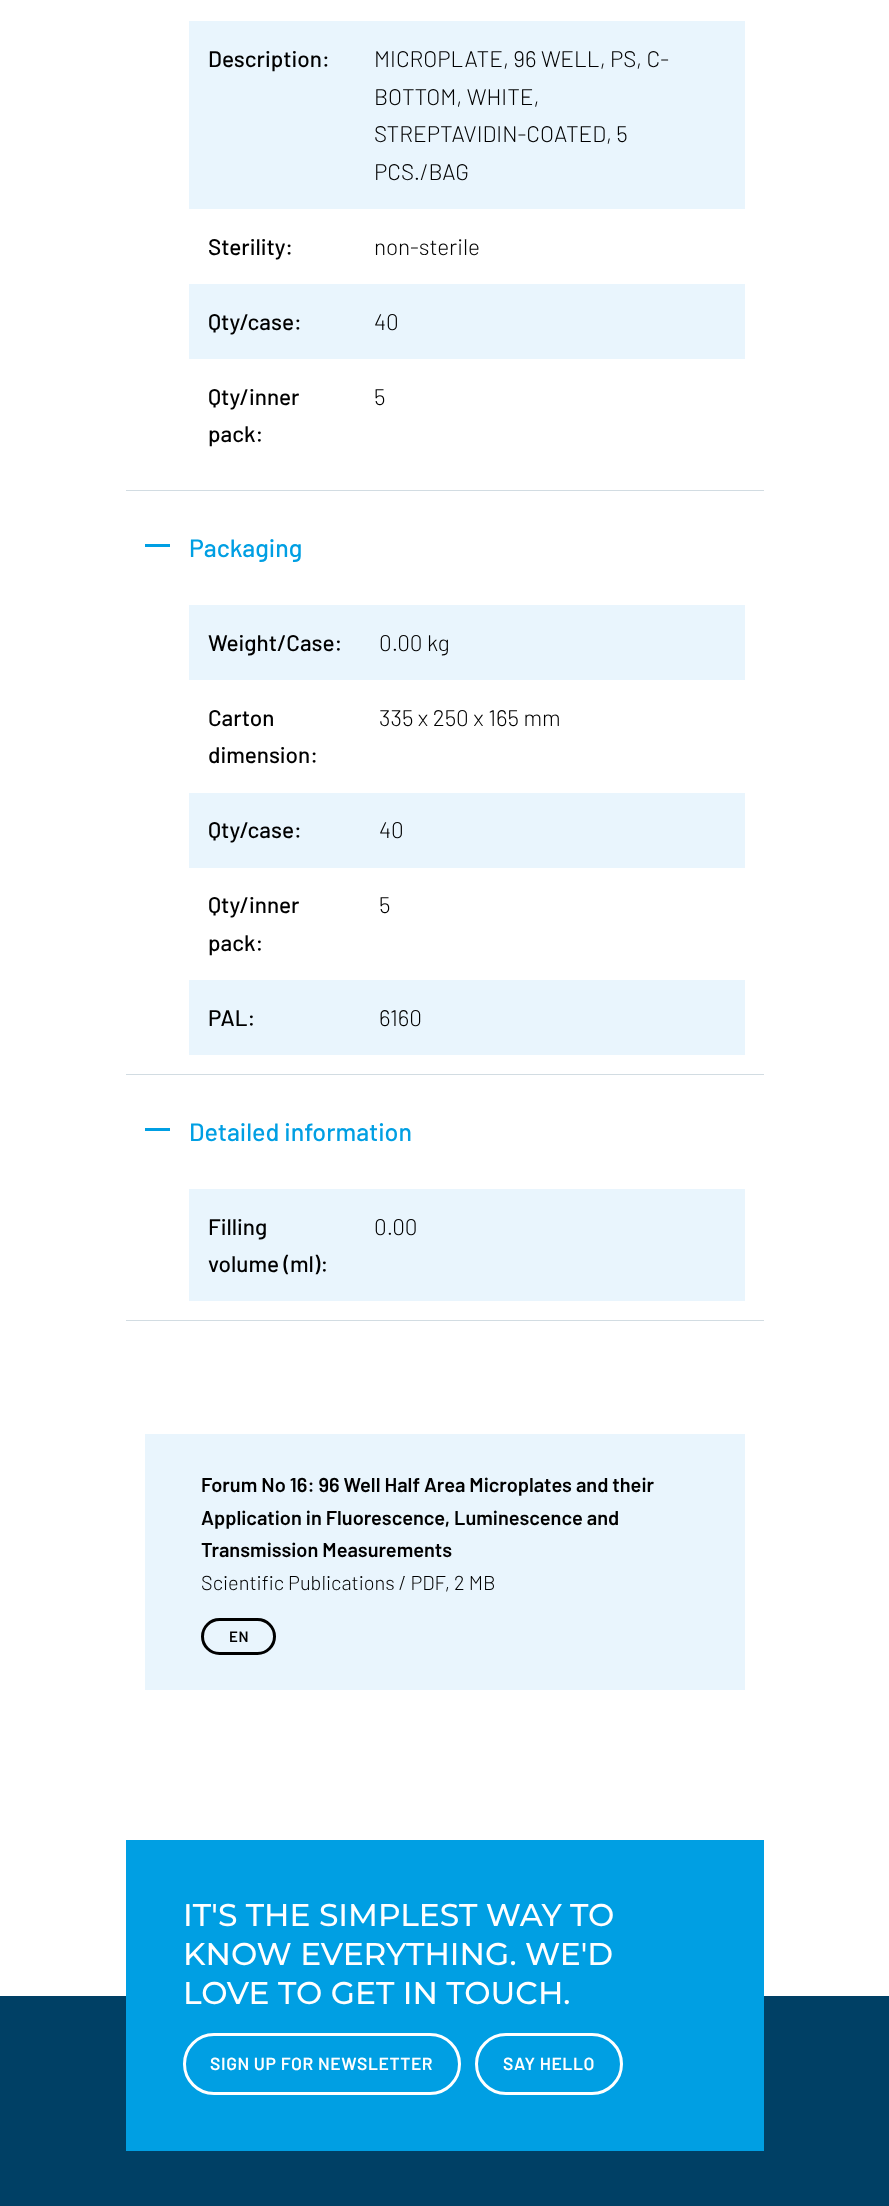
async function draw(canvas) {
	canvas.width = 889;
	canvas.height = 2206;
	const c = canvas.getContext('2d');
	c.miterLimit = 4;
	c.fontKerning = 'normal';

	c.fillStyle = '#fff';
	c.fillRect(0, 0, 889, 2206);
	c.fillStyle = '#d2dce2';
	c.fillRect(126, 490, 638, 1);
	c.fillStyle = '#e9f5fd';
	c.fillRect(189, 21, 556, 188);
	c.font = '500 22.5px Barlow';
	c.fillStyle = '#000';
	c.fillText('Description:', 208, 67);
	c.font = '300 22.5px Barlow';
	for (const [text, x, y] of [
		['MICROPLATE, 96 WELL, PS, C-', 374, 67],
		['BOTTOM, WHITE,', 374, 105],
		['STREPTAVIDIN-COATED, 5', 374, 142],
		['PCS./BAG', 374, 180],
	]) {
		c.fillText(text, x, y);
	}
	c.font = '500 22.5px Barlow';
	c.fillText('Sterility:', 208, 255);
	c.font = '300 22.5px Barlow';
	c.fillText('non-sterile', 374, 255);
	c.fillStyle = '#e9f5fd';
	c.fillRect(189, 284, 556, 75);
	c.font = '500 22.5px Barlow';
	c.fillStyle = '#000';
	c.fillText('Qty/case:', 208, 330);
	c.font = '300 22.5px Barlow';
	c.fillText('40', 374, 330);
	c.font = '500 22.5px Barlow';
	c.fillText('Qty/inner', 208, 405);
	c.fillText('pack:', 208, 442);
	c.font = '300 22.5px Barlow';
	c.fillText('5', 374, 405);
	c.fillStyle = '#d2dce2';
	c.fillRect(126, 1074, 638, 1);
	c.fillStyle = '#009fe3';
	c.fillRect(145, 544, 25, 3);
	c.font = '500 25px Barlow';
	c.fillText('Packaging', 189, 557);
	c.fillStyle = '#e9f5fd';
	c.fillRect(189, 605, 556, 75);
	c.font = '500 22.5px Barlow';
	c.fillStyle = '#000';
	c.fillText('Weight/Case:', 208, 651);
	c.font = '300 22.5px Barlow';
	c.fillText('0.00 kg', 379, 651);
	c.font = '500 22.5px Barlow';
	c.fillText('Carton', 208, 726);
	c.fillText('dimension:', 208, 763);
	c.font = '300 22.5px Barlow';
	c.fillText('335 x 250 x 165 mm', 379, 726);
	c.fillStyle = '#e9f5fd';
	c.fillRect(189, 793, 556, 75);
	c.font = '500 22.5px Barlow';
	c.fillStyle = '#000';
	c.fillText('Qty/case:', 208, 838);
	c.font = '300 22.5px Barlow';
	c.fillText('40', 379, 838);
	c.font = '500 22.5px Barlow';
	c.fillText('Qty/inner', 208, 913);
	c.fillText('pack:', 208, 951);
	c.font = '300 22.5px Barlow';
	c.fillText('5', 379, 913);
	c.fillStyle = '#e9f5fd';
	c.fillRect(189, 980, 556, 75);
	c.font = '500 22.5px Barlow';
	c.fillStyle = '#000';
	c.fillText('PAL:', 208, 1026);
	c.font = '300 22.5px Barlow';
	c.fillText('6160', 379, 1026);
	c.fillStyle = '#d2dce2';
	c.fillRect(126, 1320, 638, 1);
	c.fillStyle = '#009fe3';
	c.fillRect(145, 1128, 25, 3);
	c.font = '500 25px Barlow';
	c.fillText('Detailed information', 189, 1141);
	c.fillStyle = '#e9f5fd';
	c.fillRect(189, 1189, 556, 112);
	c.font = '500 22.5px Barlow';
	c.fillStyle = '#000';
	c.fillText('Filling', 208, 1235);
	c.fillText('volume (ml):', 208, 1272);
	c.font = '300 22.5px Barlow';
	c.fillText('0.00', 374, 1235);
	c.fillStyle = '#e9f5fd';
	c.fillRect(145, 1434, 600, 256);
	c.font = '600 20px Barlow';
	c.fillStyle = '#000';
	for (const [text, x, y] of [
		['Forum No 16: 96 Well Half Area Microplates and their', 201, 1492],
		['Application in Fluorescence, Luminescence and', 201, 1525],
		['Transmission Measurements', 201, 1557],
	]) {
		c.fillText(text, x, y);
	}
	c.font = '300 20px Barlow';
	c.fillText('Scientific Publications / PDF, 2 MB', 201, 1590);
	c.beginPath();
	c.roundRect(202.5, 1619.5, 72, 34, 17);
	c.strokeStyle = '#000';
	c.lineWidth = 3;
	c.stroke();
	c.letterSpacing = '0.6px';
	c.font = '600 15px Barlow';
	c.fillText('EN', 229, 1642);
	c.fillStyle = '#004065';
	c.fillRect(0, 1996, 889, 210);
	c.fillStyle = '#009fe3';
	c.fillRect(126, 1840, 638, 311);
	c.letterSpacing = '0px';
	c.font = '500 31.3px Montserrat';
	c.fillStyle = '#fff';
	for (const [text, x, y] of [
		['IT\'S THE SIMPLEST WAY TO', 183, 1926],
		['KNOW EVERYTHING. WE\'D', 183, 1965],
		['LOVE TO GET IN TOUCH.', 183, 2004],
	]) {
		c.fillText(text, x, y);
	}
	c.beginPath();
	c.roundRect(184.5, 2034.5, 275, 59, 29.5);
	c.strokeStyle = '#fff';
	c.stroke();
	c.letterSpacing = '0.6px';
	c.font = '600 17.5px Barlow';
	c.fillText('SIGN UP FOR NEWSLETTER', 210, 2070);
	c.beginPath();
	c.roundRect(476.5, 2034.5, 145, 59, 29.5);
	c.stroke();
	c.fillText('SAY HELLO', 503, 2070);
}

draw(document.querySelector('canvas'));
